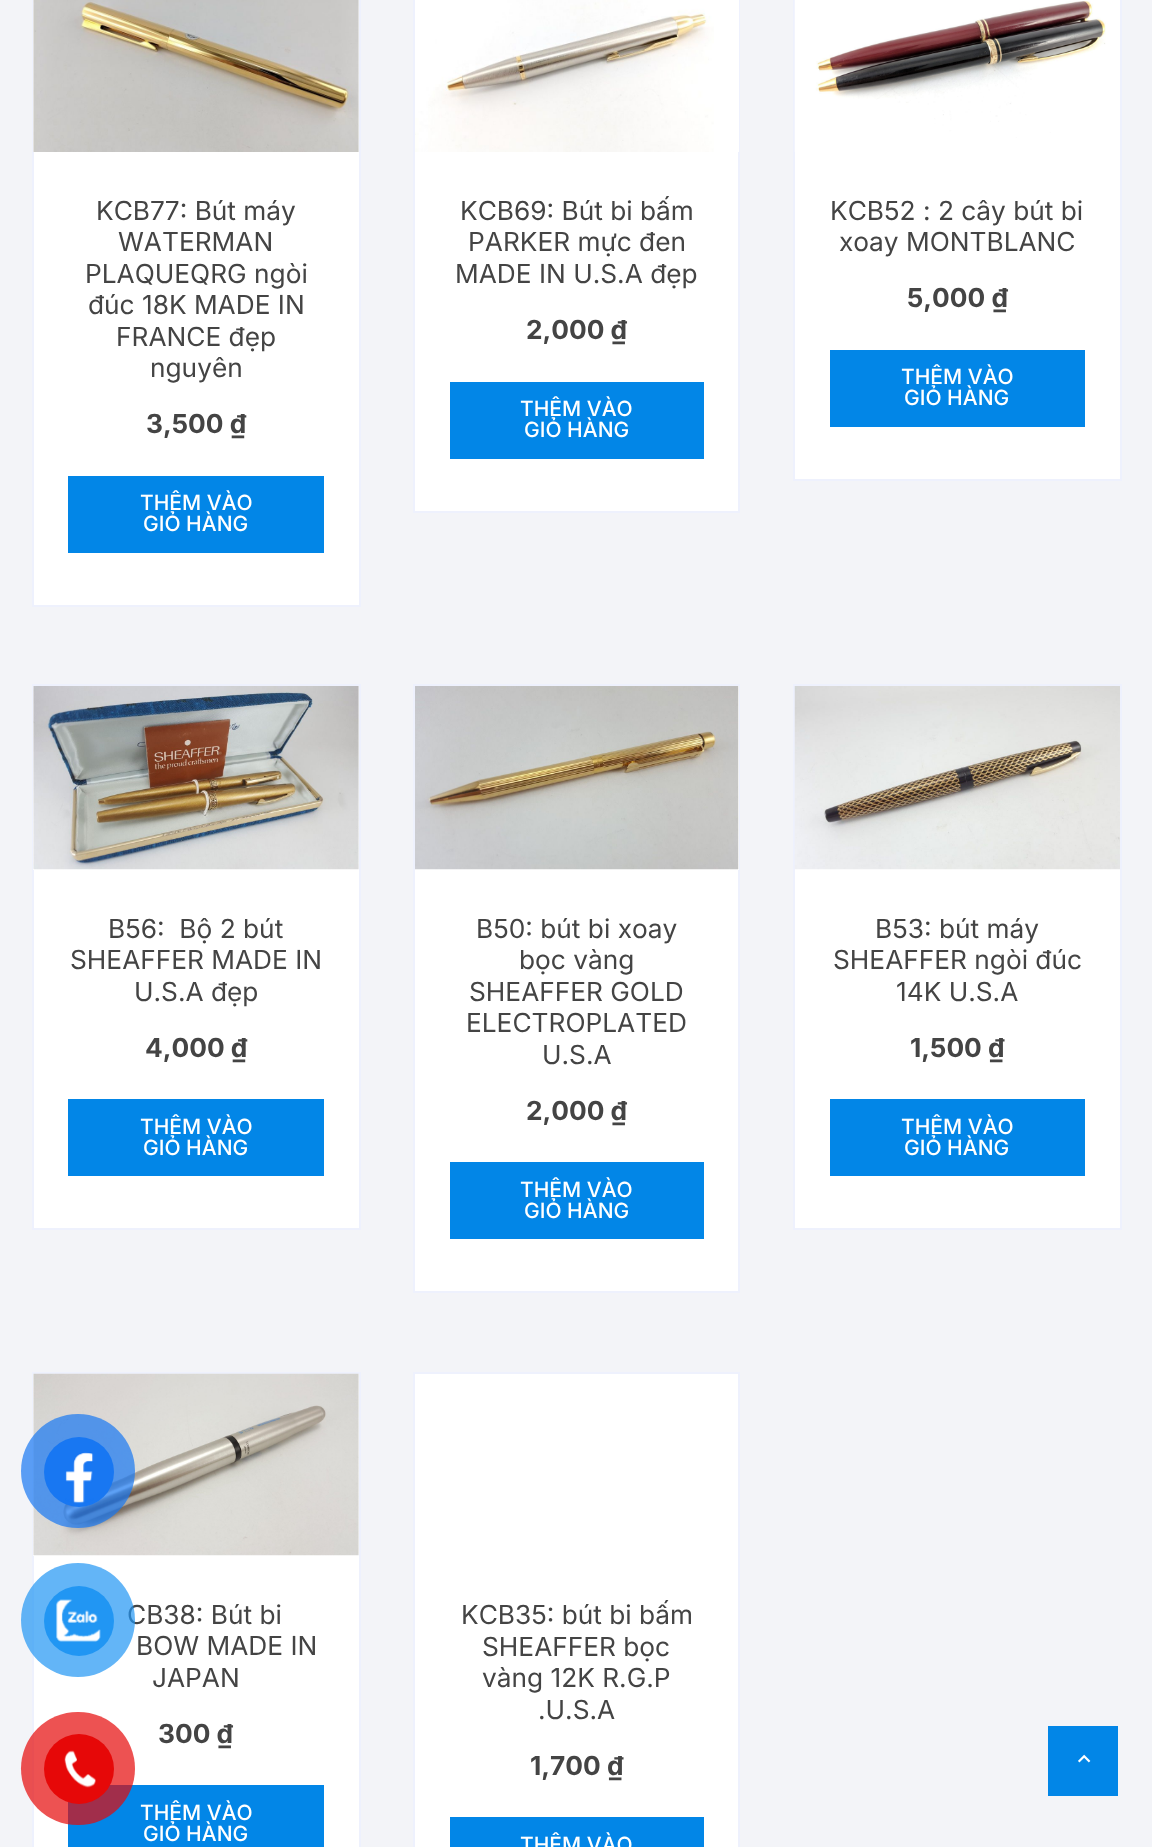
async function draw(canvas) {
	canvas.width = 1152;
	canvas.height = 1847;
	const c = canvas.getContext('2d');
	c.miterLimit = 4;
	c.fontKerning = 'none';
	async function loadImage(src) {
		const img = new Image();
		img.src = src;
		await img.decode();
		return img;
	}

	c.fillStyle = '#f3f4f8';
	c.fillRect(0, 0, 1152, 1847);
	c.fillStyle = '#fff';
	c.fillRect(34, 152, 325, 453);
	c.strokeStyle = '#eef1fd';
	c.lineWidth = 2;
	c.strokeRect(33, -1, 327, 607);
	c.fillRect(33, 0, 326, 152);
	c.drawImage(await loadImage('img1.png'), 33, 0, 326, 152);
	c.font = '26.25px Inter';
	c.fillStyle = '#444';
	for (const [text, x, y] of [
		['KCB77: Bút máy', 96, 220],
		['WATERMAN', 118, 251],
		['PLAQUEQRG ngòi', 85, 283],
		['đúc 18K MADE IN', 88, 314],
		['FRANCE đẹp', 116, 346],
		['nguyên', 150, 377],
	]) {
		c.fillText(text, x, y);
	}
	c.font = 'bold 26.25px Inter';
	c.fillText('3,500 ₫', 146, 433);
	c.fillStyle = '#0286e7';
	c.fillRect(68, 476, 256, 77);
	c.font = '500 21px Inter';
	c.fillStyle = '#fff';
	c.fillText('THÊM VÀO', 140, 510);
	c.fillText('GIỎ HÀNG', 143, 531);
	c.fillRect(415, 152, 323, 359);
	c.strokeRect(414, -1, 325, 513);
	c.fillRect(714, 0, 25, 152);
	c.drawImage(await loadImage('img2.png'), 415, 0, 299, 152);
	c.save();
	c.beginPath();
	c.rect(450, 196, 254, 95);
	c.clip();
	c.font = '26.25px Inter';
	c.fillStyle = '#444';
	c.fillText('KCB69: Bút bi bấm', 460, 220);
	c.restore();
	c.font = '26.25px Inter';
	c.fillStyle = '#444';
	c.fillText('PARKER mực đen', 468, 251);
	c.fillText('MADE IN U.S.A đẹp', 455, 283);
	c.font = 'bold 26.25px Inter';
	c.fillText('2,000 ₫', 526, 339);
	c.fillStyle = '#0286e7';
	c.fillRect(450, 382, 254, 77);
	c.font = '500 21px Inter';
	c.fillStyle = '#fff';
	c.fillText('THÊM VÀO', 520, 416);
	c.fillText('GIỎ HÀNG', 524, 437);
	c.beginPath();
	c.rect(794, -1, 327, 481);
	c.fill();
	c.stroke();
	c.drawImage(await loadImage('img3.png'), 794, 0, 312, 152);
	c.font = '26.25px Inter';
	c.fillStyle = '#444';
	c.fillText('KCB52 : 2 cây bút bi', 830, 220);
	c.fillText('xoay MONTBLANC', 839, 251);
	c.font = 'bold 26.25px Inter';
	c.fillText('5,000 ₫', 907, 307);
	c.fillStyle = '#0286e7';
	c.fillRect(830, 350, 255, 77);
	c.font = '500 21px Inter';
	c.fillStyle = '#fff';
	c.fillText('THÊM VÀO', 901, 384);
	c.fillText('GIỎ HÀNG', 904, 405);
	c.fillRect(34, 870, 325, 358);
	c.strokeRect(33, 685, 327, 544);
	c.fillRect(33, 686, 326, 184);
	c.drawImage(await loadImage('img4.png'), 33, 686, 326, 184);
	c.font = '26.25px Inter';
	c.fillStyle = '#444';
	for (const [text, x, y] of [
		['B56:  Bộ 2 bút', 108, 938],
		['SHEAFFER MADE IN', 70, 969],
		['U.S.A đẹp', 134, 1001],
	]) {
		c.fillText(text, x, y);
	}
	c.font = 'bold 26.25px Inter';
	c.fillText('4,000 ₫', 145, 1057);
	c.fillStyle = '#0286e7';
	c.fillRect(68, 1099, 256, 77);
	c.font = '500 21px Inter';
	c.fillStyle = '#fff';
	c.fillText('THÊM VÀO', 140, 1134);
	c.fillText('GIỎ HÀNG', 143, 1155);
	c.fillRect(415, 870, 323, 421);
	c.strokeRect(414, 685, 325, 607);
	c.fillRect(415, 686, 324, 184);
	c.drawImage(await loadImage('img5.png'), 415, 686, 324, 184);
	c.font = '26.25px Inter';
	c.fillStyle = '#444';
	for (const [text, x, y] of [
		['B50: bút bi xoay', 476, 938],
		['bọc vàng', 519, 969],
		['SHEAFFER GOLD', 469, 1001],
		['ELECTROPLATED', 466, 1032],
		['U.S.A', 542, 1064],
	]) {
		c.fillText(text, x, y);
	}
	c.font = 'bold 26.25px Inter';
	c.fillText('2,000 ₫', 526, 1120);
	c.fillStyle = '#0286e7';
	c.fillRect(450, 1162, 254, 77);
	c.font = '500 21px Inter';
	c.fillStyle = '#fff';
	c.fillText('THÊM VÀO', 520, 1197);
	c.fillText('GIỎ HÀNG', 524, 1218);
	c.fillRect(795, 869, 325, 359);
	c.strokeRect(794, 685, 327, 544);
	c.drawImage(await loadImage('img6.png'), 794, 686, 326, 184);
	c.font = '26.25px Inter';
	c.fillStyle = '#444';
	for (const [text, x, y] of [
		['B53: bút máy', 875, 938],
		['SHEAFFER ngòi đúc', 833, 969],
		['14K U.S.A', 896, 1001],
	]) {
		c.fillText(text, x, y);
	}
	c.font = 'bold 26.25px Inter';
	c.fillText('1,500 ₫', 910, 1057);
	c.fillStyle = '#0286e7';
	c.fillRect(830, 1099, 255, 77);
	c.font = '500 21px Inter';
	c.fillStyle = '#fff';
	c.fillText('THÊM VÀO', 901, 1134);
	c.fillText('GIỎ HÀNG', 904, 1155);
	c.fillRect(34, 1556, 325, 291);
	c.strokeRect(33, 1373, 327, 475);
	c.fillRect(33, 1374, 326, 182);
	c.drawImage(await loadImage('img7.png'), 33, 1373, 326, 183);
	c.font = '26.25px Inter';
	c.fillStyle = '#444';
	for (const [text, x, y] of [
		['CB38: Bút bi', 127, 1624],
		['BOW MADE IN', 136, 1655],
		['JAPAN', 152, 1687],
	]) {
		c.fillText(text, x, y);
	}
	c.font = 'bold 26.25px Inter';
	c.fillText('300 ₫', 158, 1743);
	c.fillStyle = '#0286e7';
	c.fillRect(68, 1785, 256, 62);
	c.font = '500 21px Inter';
	c.fillStyle = '#fff';
	c.fillText('THÊM VÀO', 140, 1820);
	c.fillText('GIỎ HÀNG', 143, 1841);
	c.beginPath();
	c.rect(414, 1373, 325, 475);
	c.fill();
	c.stroke();
	c.save();
	c.beginPath();
	c.rect(450, 1600, 254, 126);
	c.clip();
	c.font = '26.25px Inter';
	c.fillStyle = '#444';
	c.fillText('KCB35: bút bi bấm', 461, 1624);
	c.restore();
	c.font = '26.25px Inter';
	c.fillStyle = '#444';
	for (const [text, x, y] of [
		['SHEAFFER bọc', 482, 1656],
		['vàng 12K R.G.P', 482, 1687],
		['.U.S.A', 538, 1719],
	]) {
		c.fillText(text, x, y);
	}
	c.font = 'bold 26.25px Inter';
	c.fillText('1,700 ₫', 530, 1775);
	c.fillStyle = '#0286e7';
	c.fillRect(450, 1817, 254, 30);
	c.font = '500 21px Inter';
	c.fillStyle = '#fff';
	c.fillText('THÊM VÀO', 520, 1852);
	c.fillStyle = '#0286e7';
	c.fillRect(1048, 1726, 70, 70);
	c.drawImage(await loadImage('img8.png'), 1078, 1754, 13, 9);
	c.fillStyle = '#1877f2b3';
	c.beginPath();
	c.arc(78, 1471, 57, 0, 2 * Math.PI);
	c.fill();
	c.fillStyle = '#1877f2';
	c.beginPath();
	c.arc(79, 1472, 35, 0, 2 * Math.PI);
	c.fill();
	c.drawImage(await loadImage('img9.png'), 65, 1452, 29, 52);
	c.fillStyle = '#2196f3b3';
	c.beginPath();
	c.arc(78, 1620, 57, 0, 2 * Math.PI);
	c.fill();
	c.fillStyle = '#2196f3';
	c.beginPath();
	c.arc(79, 1621, 35, 0, 2 * Math.PI);
	c.fill();
	c.drawImage(await loadImage('img10.png'), 56, 1599, 45, 43);
	c.fillStyle = '#e60808b3';
	c.beginPath();
	c.roundRect(21, 1712, 114, 113, 56.5);
	c.fill();
	c.fillStyle = '#e60808';
	c.beginPath();
	c.arc(79, 1769, 35, 0, 2 * Math.PI);
	c.fill();
	c.drawImage(await loadImage('img11.png'), 64, 1750, 32, 38);
}

draw(document.querySelector('canvas'));
